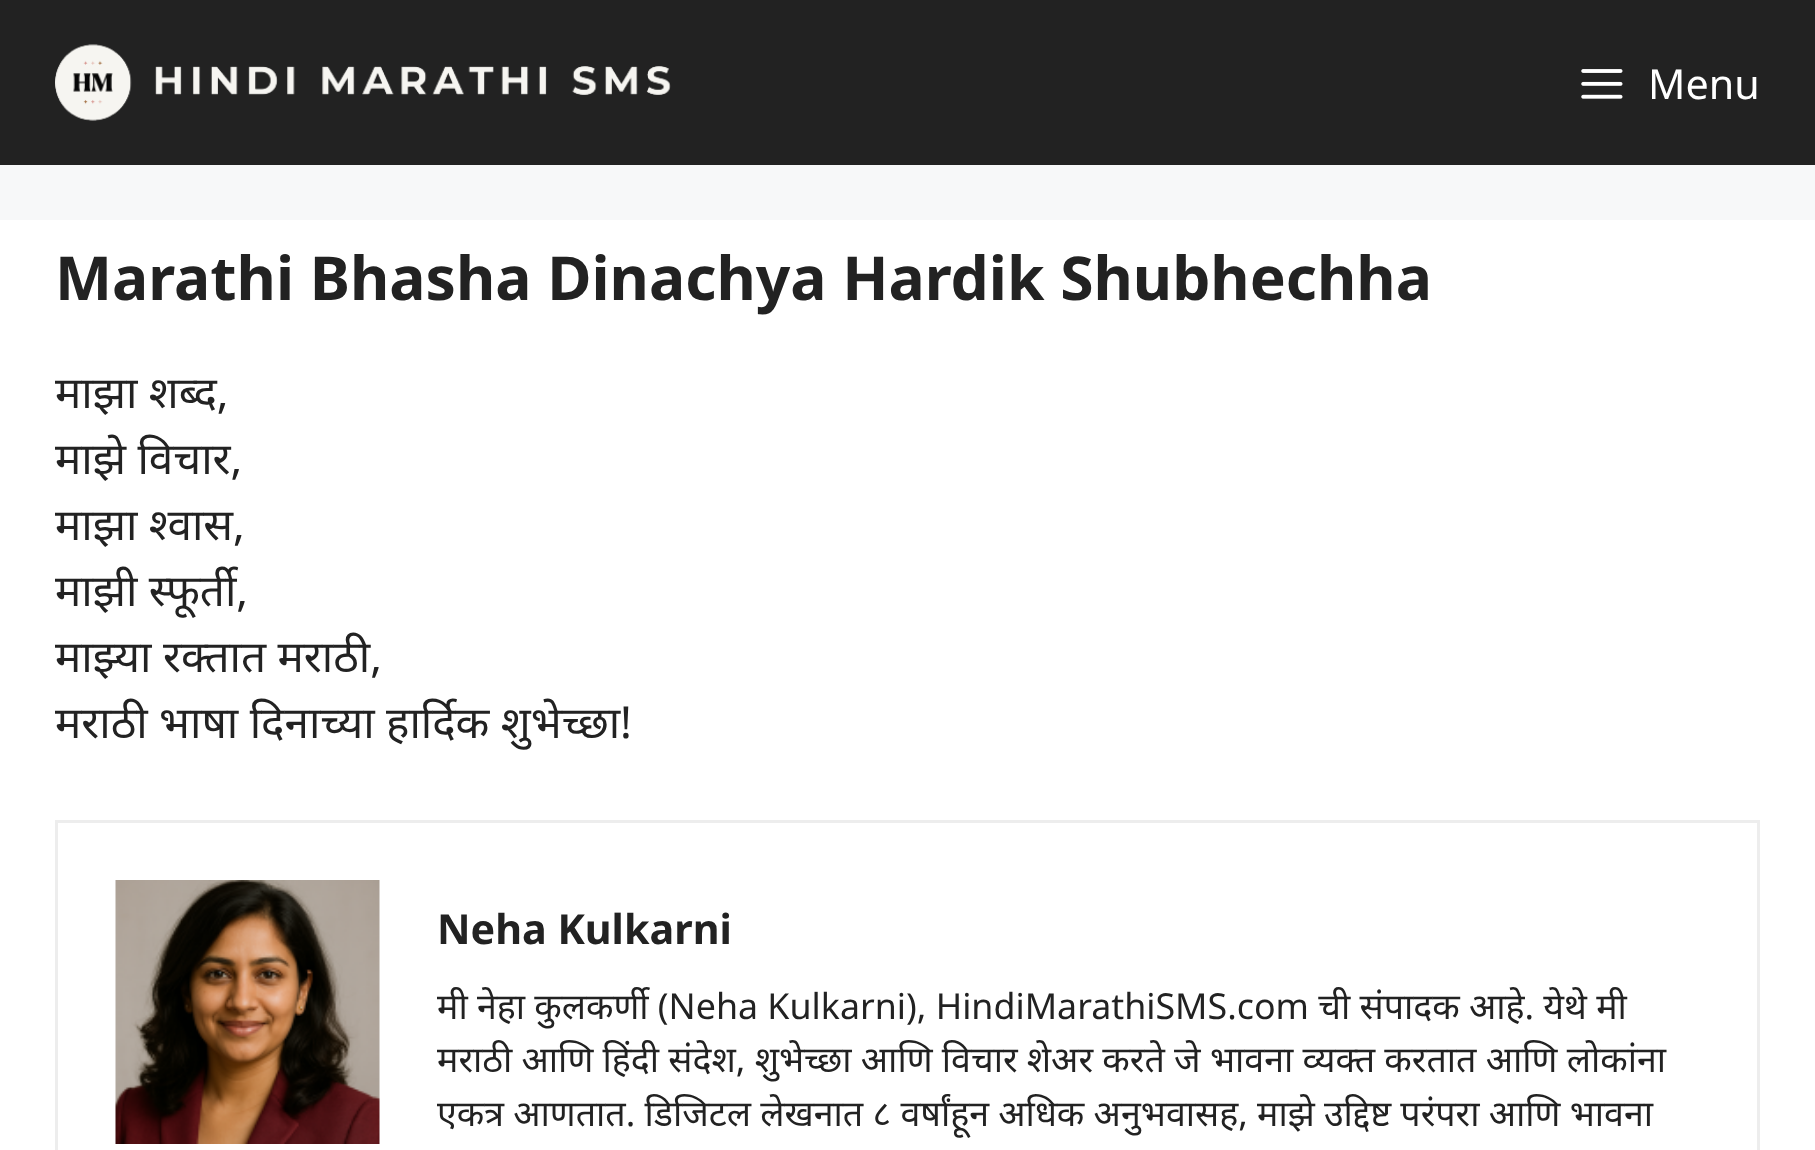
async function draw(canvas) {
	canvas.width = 1815;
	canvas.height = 1150;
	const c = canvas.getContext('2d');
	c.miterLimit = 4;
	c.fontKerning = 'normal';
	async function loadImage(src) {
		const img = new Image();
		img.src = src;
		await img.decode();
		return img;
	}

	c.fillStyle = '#f7f8f9';
	c.fillRect(0, 0, 1815, 1150);
	c.fillStyle = '#222';
	c.fillRect(0, 0, 1815, 165);
	c.drawImage(await loadImage('img1.png'), 55, 44, 616, 77);
	c.drawImage(await loadImage('img2.png'), 1581, 69, 42, 30);
	c.font = '41.25px Noto Sans';
	c.fillStyle = '#fff';
	c.fillText('Menu', 1648, 99);
	c.fillRect(0, 220, 1815, 930);
	c.font = 'bold 60.5px Noto Sans';
	c.fillStyle = '#222';
	c.fillText('Marathi Bhasha Dinachya Hardik Shubhechha', 55, 300);
	c.font = '44px Noto Sans';
	for (const [text, x, y] of [
		['माझा शब्द,', 55, 408],
		['माझे विचार,', 55, 474],
		['माझा श्वास,', 55, 540],
		['माझी स्फूर्ती,', 55, 606],
		['माझ्या रक्तात मराठी,', 55, 672],
		['मराठी भाषा दिनाच्या हार्दिक शुभेच्छा!', 55, 738],
	]) {
		c.fillText(text, x, y);
	}
	c.strokeStyle = '#ededed';
	c.lineWidth = 3;
	c.strokeRect(56.5, 821.5, 1702, 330);
	c.drawImage(await loadImage('img3.png'), 115, 880, 265, 264);
	c.font = 'bold 41.25px Noto Sans';
	c.fillText('Neha Kulkarni', 437, 944);
	c.font = '35.75px Noto Sans';
	for (const [text, x, y] of [
		['मी नेहा कुलकर्णी (Neha Kulkarni), HindiMarathiSMS.com ची संपादक आहे. येथे मी', 437, 1019],
		['मराठी आणि हिंदी संदेश, शुभेच्छा आणि विचार शेअर करते जे भावना व्यक्त करतात आणि लोकांना', 437, 1072],
		['एकत्र आणतात. डिजिटल लेखनात ८ वर्षांहून अधिक अनुभवासह, माझे उद्दिष्ट परंपरा आणि भावना', 437, 1126],
	]) {
		c.fillText(text, x, y);
	}
}

draw(document.querySelector('canvas'));
